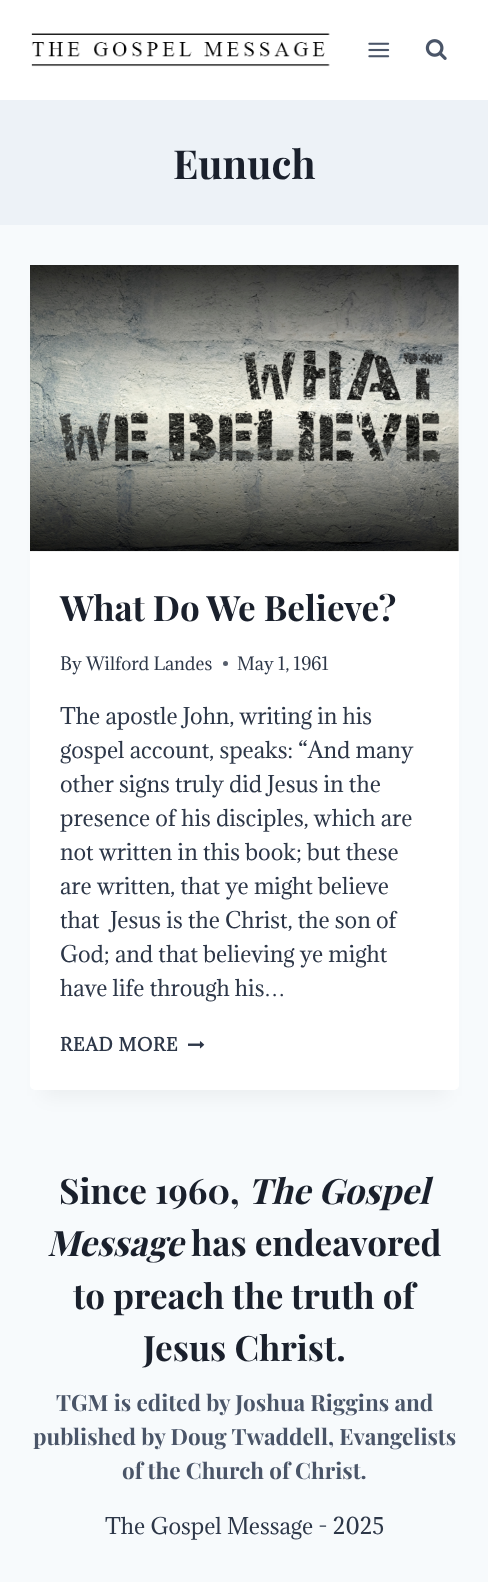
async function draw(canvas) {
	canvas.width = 488;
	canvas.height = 1582;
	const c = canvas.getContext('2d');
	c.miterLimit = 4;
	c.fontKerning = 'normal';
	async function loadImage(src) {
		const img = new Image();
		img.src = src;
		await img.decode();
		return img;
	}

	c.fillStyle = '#f7fafc';
	c.fillRect(0, 0, 488, 1582);
	c.fillStyle = '#fff';
	c.fillRect(0, 0, 488, 100);
	c.drawImage(await loadImage('img1.png'), 31, 33, 299, 34);
	c.drawImage(await loadImage('img2.png'), 368, 42, 22, 16);
	c.drawImage(await loadImage('img3.png'), 425, 39, 22, 21);
	c.fillStyle = '#edf2f7';
	c.fillRect(0, 100, 488, 125);
	c.font = 'bold 40px Playfair Display';
	c.fillStyle = '#1a202c';
	c.fillText('Eunuch', 173, 179);
	c.fillStyle = '#0000000d';
	c.filter = 'blur(9.5px)';
	c.beginPath();
	c.rect(43, 296, 403, 800);
	c.fill();
	c.filter = 'none';
	c.fillStyle = '#fff';
	c.beginPath();
	c.roundRect(30, 265, 429, 825, 5);
	c.fill();
	c.drawImage(await loadImage('img4.png'), 30, 265, 429, 287);
	c.font = 'bold 35px Playfair Display';
	c.fillStyle = '#1a202c';
	c.fillText('What Do We Believe?', 60, 621);
	c.font = '17px Adamina';
	c.fillStyle = '#2d3748';
	c.fillText('By Wilford Landes', 60, 670);
	c.fillStyle = '#575f6d';
	c.beginPath();
	c.arc(225.5, 663.5, 2.5, 0, 2 * Math.PI);
	c.fill();
	c.fillStyle = '#2d3748';
	c.fillText('May 1, 1961', 237, 670);
	c.font = '21.25px Adamina';
	for (const [text, x, y] of [
		['The apostle John, writing in his', 60, 724],
		['gospel account, speaks: “And many', 60, 758],
		['other signs truly did Jesus in the', 60, 792],
		['presence of his disciples, which are', 60, 826],
		['not written in this book; but these', 60, 860],
		['are written, that ye might believe', 60, 894],
		['that  Jesus is the Christ, the son of', 60, 928],
		['God; and that believing ye might', 60, 962],
		['have life through his', 60, 996],
	]) {
		c.fillText(text, x, y);
	}
	c.font = '21.25px Liberation Serif';
	c.fillText('…', 264, 996);
	c.letterSpacing = '0.75px';
	c.font = 'bold 17px Adamina';
	c.fillText('READ MORE', 60, 1051);
	c.drawImage(await loadImage('img5.png'), 188, 1041, 17, 8);
	c.letterSpacing = '0px';
	c.font = 'bold 35px Playfair Display';
	c.fillStyle = '#1a202c';
	c.fillText('Since 1960,', 59, 1204);
	c.font = 'italic bold 35px Playfair Display';
	c.fillText('The Gospel', 248, 1204);
	c.fillText('Message', 47, 1256);
	c.font = 'bold 35px Playfair Display';
	for (const [text, x, y] of [
		['has endeavored', 191, 1256],
		['to preach the truth of', 73, 1309],
		['Jesus Christ.', 143, 1361],
	]) {
		c.fillText(text, x, y);
	}
	c.font = 'bold 22.5px Playfair Display';
	c.fillStyle = '#4a5568';
	for (const [text, x, y] of [
		['TGM is edited by Joshua Riggins and', 56, 1411],
		['published by Doug Twaddell, Evangelists', 33, 1445],
		['of the Church of Christ.', 122, 1479],
	]) {
		c.fillText(text, x, y);
	}
	c.font = '21.25px Adamina';
	c.fillStyle = '#2d3748';
	c.fillText('The Gospel Message - 2025', 105, 1534);
}

draw(document.querySelector('canvas'));
